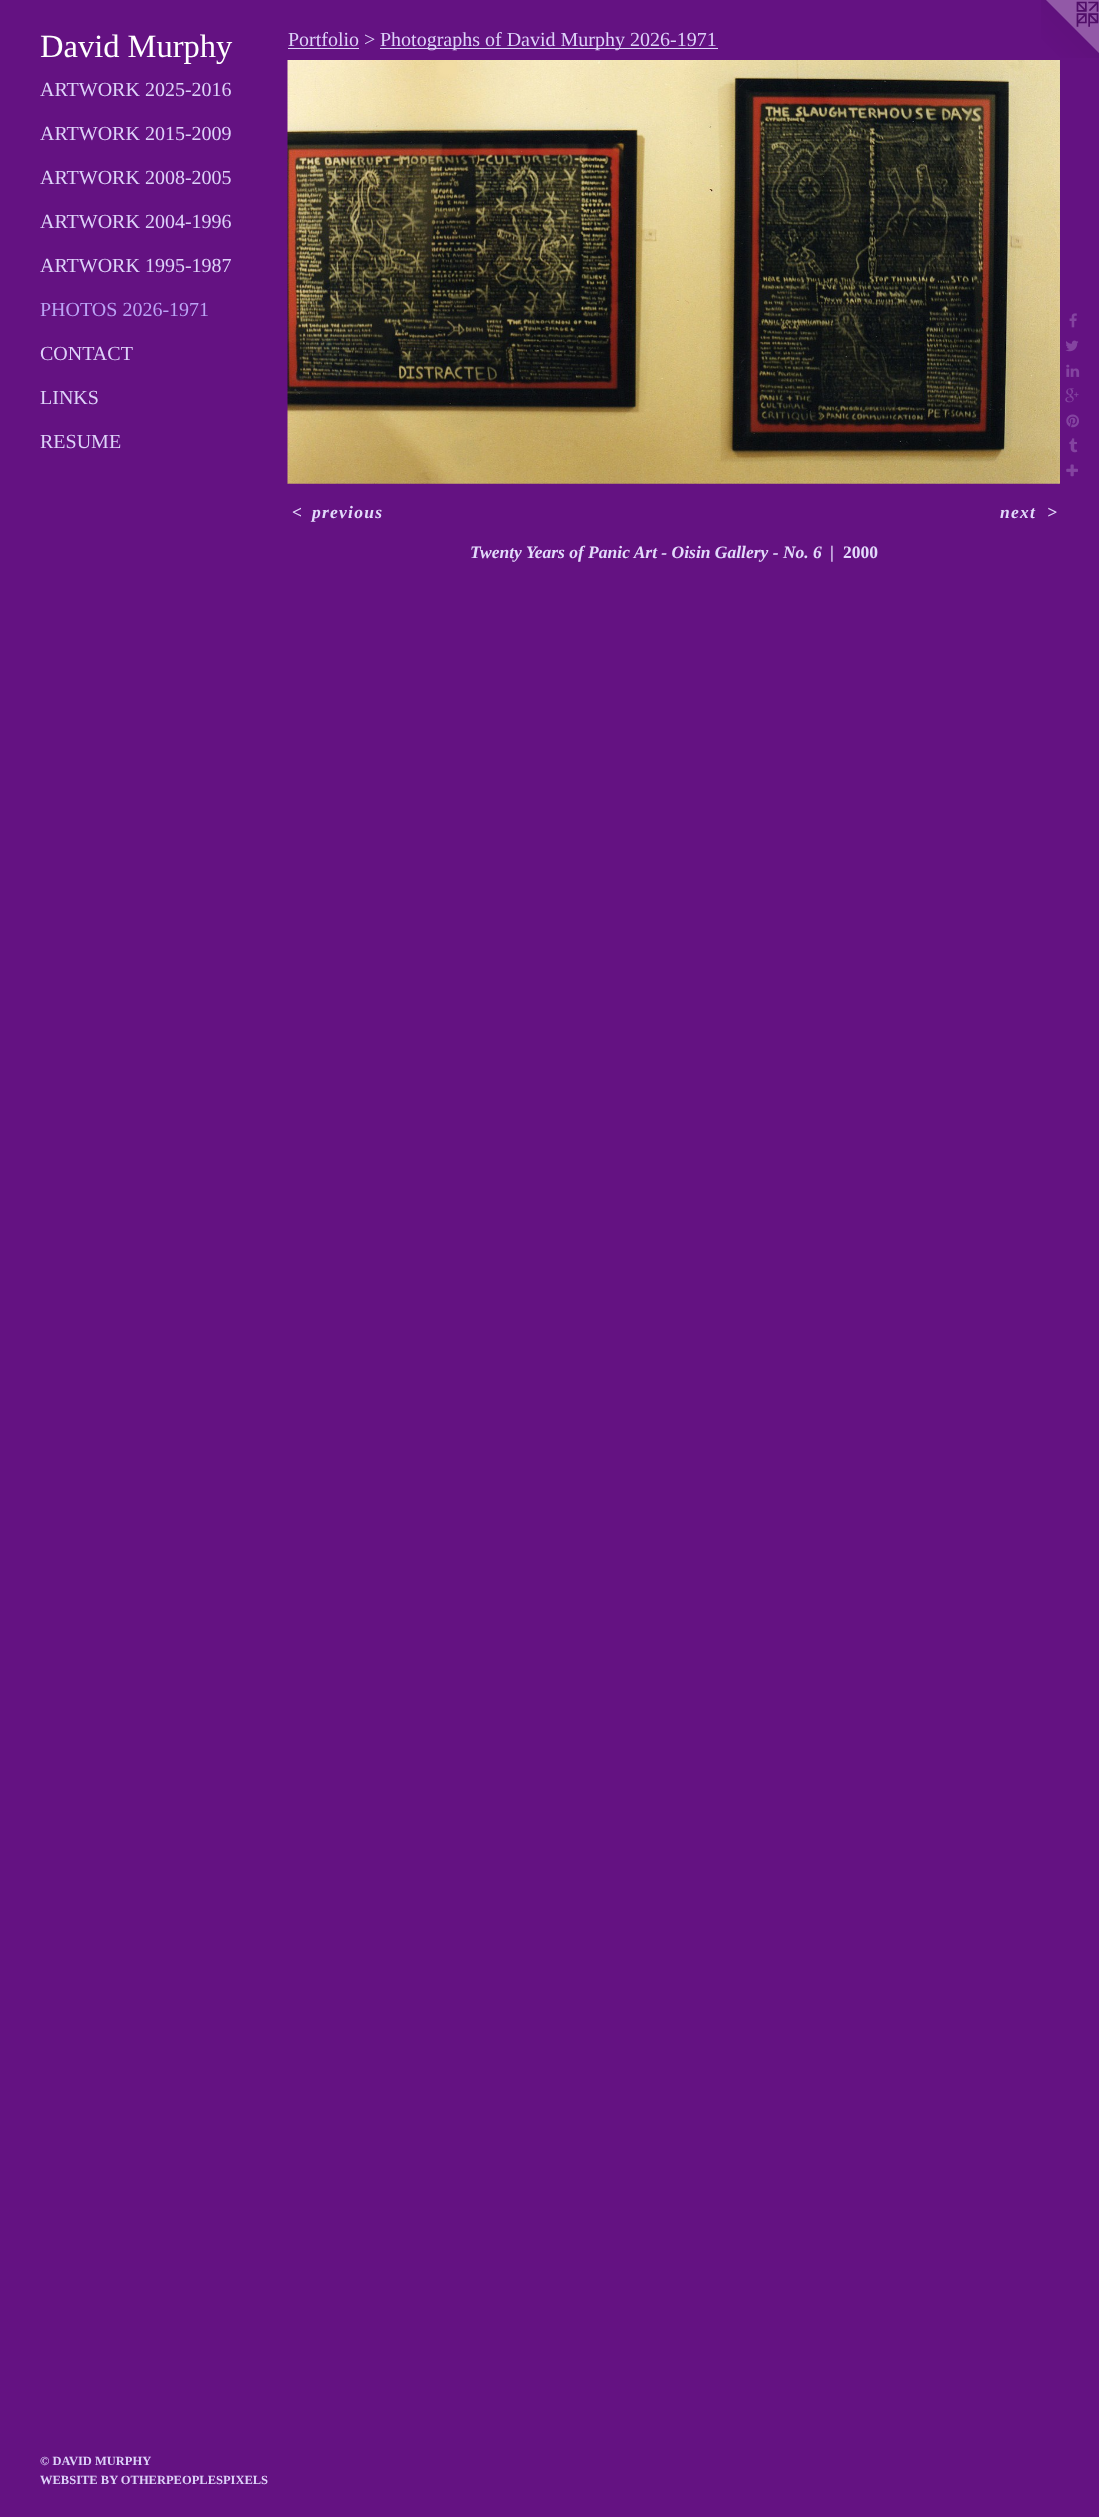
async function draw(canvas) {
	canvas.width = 1099;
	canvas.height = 2517;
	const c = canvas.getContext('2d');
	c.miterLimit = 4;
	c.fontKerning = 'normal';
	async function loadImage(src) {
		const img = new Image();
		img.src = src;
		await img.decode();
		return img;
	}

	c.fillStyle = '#641282';
	c.fillRect(0, 0, 1099, 2517);
	c.font = '32.5px Liberation Serif';
	c.fillStyle = '#fff';
	c.fillText('David Murphy', 40, 57);
	c.font = '20px Liberation Serif';
	c.fillStyle = '#ddd2f9';
	for (const [text, x, y] of [
		['ARTWORK 2025-2016', 40, 96],
		['ARTWORK 2015-2009', 40, 140],
		['ARTWORK 2008-2005', 40, 184],
		['ARTWORK 2004-1996', 40, 228],
		['ARTWORK 1995-1987', 40, 272],
	]) {
		c.fillText(text, x, y);
	}
	c.fillStyle = '#bba3f5';
	c.fillText('PHOTOS 2026-1971', 40, 316);
	c.fillStyle = '#ddd2f9';
	for (const [text, x, y] of [
		['CONTACT', 40, 360],
		['LINKS', 40, 404],
		['RESUME', 40, 448],
	]) {
		c.fillText(text, x, y);
	}
	c.font = 'bold 12.5px Liberation Serif';
	c.fillText('© DAVID MURPHY', 40, 2465);
	c.fillText('WEBSITE BY OTHERPEOPLESPIXELS', 40, 2484);
	c.font = '20px Liberation Serif';
	c.fillText('Portfolio >', 288, 46);
	c.fillStyle = '#ddd7f9';
	c.fillRect(288, 48, 71, 1);
	c.fillRect(380, 48, 338, 1);
	c.fillStyle = '#ddd2f9';
	c.fillText('Photographs of David Murphy 2026-1971', 380, 46);
	c.drawImage(await loadImage('img1.png'), 287, 60, 773, 424);
	c.drawImage(await loadImage('img2.png'), 1069, 313, 8, 15);
	c.drawImage(await loadImage('img3.png'), 1065, 340, 14, 12);
	c.drawImage(await loadImage('img4.png'), 1066, 364, 14, 13);
	c.drawImage(await loadImage('img5.png'), 1065, 388, 14, 15);
	c.drawImage(await loadImage('img6.png'), 1066, 414, 13, 14);
	c.drawImage(await loadImage('img7.png'), 1069, 438, 9, 15);
	c.drawImage(await loadImage('img8.png'), 1066, 464, 12, 13);
	c.letterSpacing = '1.25px';
	c.font = 'italic bold 17.5px Liberation Serif';
	c.fillStyle = '#e2dafb';
	for (const [text, x, y] of [
		['<', 292, 518],
		['previous', 312, 518],
		['next', 1000, 518],
		['>', 1047, 518],
	]) {
		c.fillText(text, x, y);
	}
	c.letterSpacing = '0px';
	c.fillText('Twenty Years of Panic Art - Oisin Gallery - No. 6', 470, 558);
	c.font = 'bold 17.5px Liberation Serif';
	c.fillText('|', 830, 558);
	c.fillText('2000', 843, 558);
	c.drawImage(await loadImage('img9.png'), 1041, 0, 58, 58);
}

draw(document.querySelector('canvas'));
